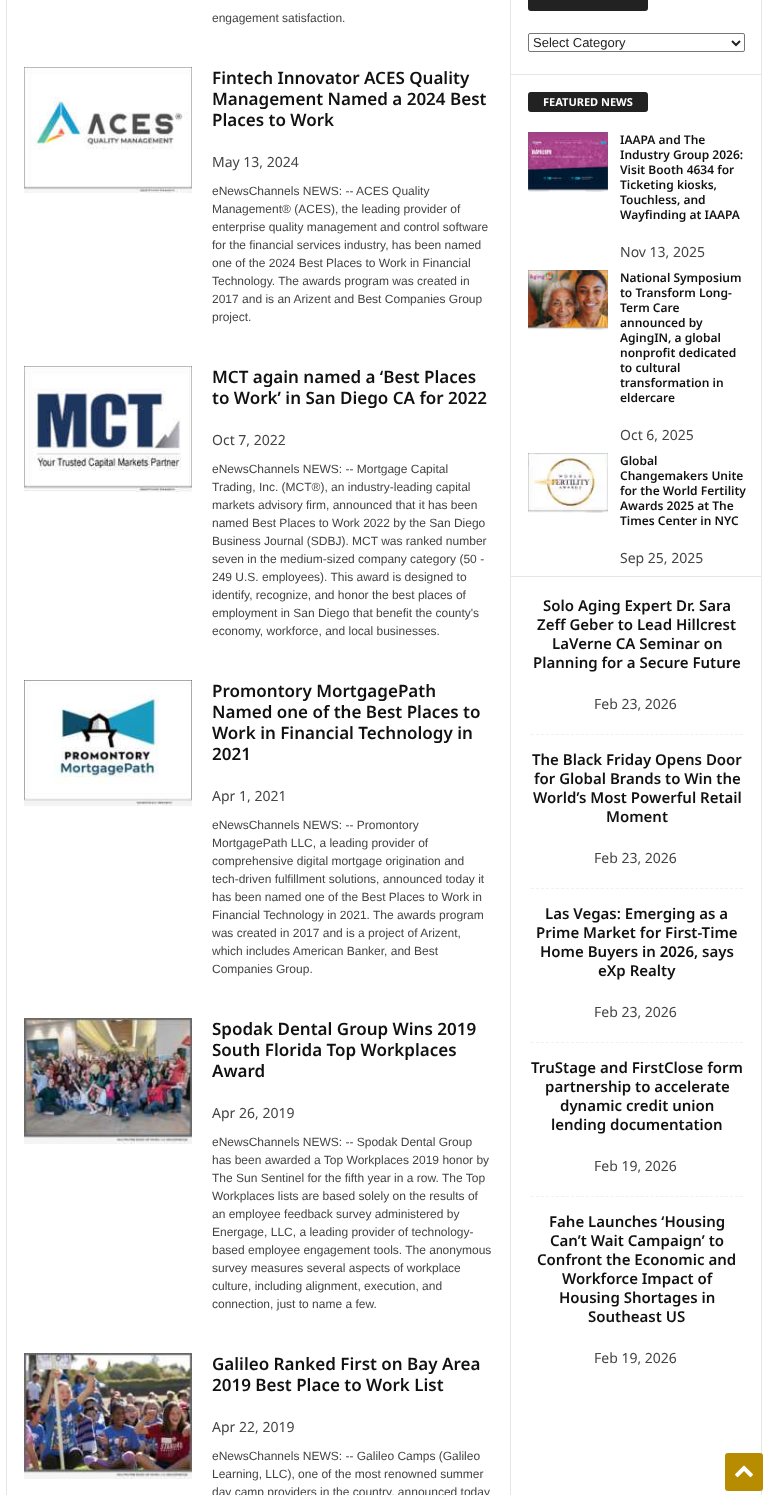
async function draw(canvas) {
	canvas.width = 768;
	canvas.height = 1495;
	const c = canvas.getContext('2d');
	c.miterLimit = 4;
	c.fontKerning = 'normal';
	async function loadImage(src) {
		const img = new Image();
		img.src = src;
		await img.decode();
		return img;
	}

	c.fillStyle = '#fff';
	c.fillRect(0, 0, 768, 1495);
	c.fillStyle = '#e6e6e6';
	c.fillRect(6, 0, 1, 1495);
	c.font = '12px Liberation Sans';
	c.fillStyle = '#444';
	c.fillText('engagement satisfaction.', 212, 22);
	c.drawImage(await loadImage('img1.png'), 24, 67, 168, 126);
	c.font = '600 17px Noto Sans';
	c.fillStyle = '#111';
	for (const [text, x, y] of [
		['Fintech Innovator ACES Quality', 212, 84],
		['Management Named a 2024 Best', 212, 105],
		['Places to Work', 212, 126],
	]) {
		c.fillText(text, x, y);
	}
	c.font = '14px Noto Sans';
	c.fillStyle = '#444';
	c.fillText('May 13, 2024', 212, 167);
	c.font = '12px Liberation Sans';
	for (const [text, x, y] of [
		['eNewsChannels NEWS: -- ACES Quality', 212, 195],
		['Management® (ACES), the leading provider of', 212, 213],
		['enterprise quality management and control software', 212, 231],
		['for the financial services industry, has been named', 212, 249],
		['one of the 2024 Best Places to Work in Financial', 212, 267],
		['Technology. The awards program was created in', 212, 285],
		['2017 and is an Arizent and Best Companies Group', 212, 303],
		['project.', 212, 321],
	]) {
		c.fillText(text, x, y);
	}
	c.drawImage(await loadImage('img2.png'), 24, 366, 168, 126);
	c.font = '600 17px Noto Sans';
	c.fillStyle = '#111';
	c.fillText('MCT again named a ‘Best Places', 212, 383);
	c.fillText('to Work’ in San Diego CA for 2022', 212, 404);
	c.font = '14px Noto Sans';
	c.fillStyle = '#444';
	c.fillText('Oct 7, 2022', 212, 445);
	c.font = '12px Liberation Sans';
	for (const [text, x, y] of [
		['eNewsChannels NEWS: -- Mortgage Capital', 212, 473],
		['Trading, Inc. (MCT®), an industry-leading capital', 212, 491],
		['markets advisory firm, announced that it has been', 212, 509],
		['named Best Places to Work 2022 by the San Diego', 212, 527],
		['Business Journal (SDBJ). MCT was ranked number', 212, 545],
		['seven in the medium-sized company category (50 -', 212, 563],
		['249 U.S. employees). This award is designed to', 212, 581],
		['identify, recognize, and honor the best places of', 212, 599],
		['employment in San Diego that benefit the county\'s', 212, 617],
		['economy, workforce, and local businesses.', 212, 635],
	]) {
		c.fillText(text, x, y);
	}
	c.drawImage(await loadImage('img3.png'), 24, 680, 168, 126);
	c.font = '600 17px Noto Sans';
	c.fillStyle = '#111';
	for (const [text, x, y] of [
		['Promontory MortgagePath', 212, 697],
		['Named one of the Best Places to', 212, 718],
		['Work in Financial Technology in', 212, 739],
		['2021', 212, 760],
	]) {
		c.fillText(text, x, y);
	}
	c.font = '14px Noto Sans';
	c.fillStyle = '#444';
	c.fillText('Apr 1, 2021', 212, 801);
	c.font = '12px Liberation Sans';
	for (const [text, x, y] of [
		['eNewsChannels NEWS: -- Promontory', 212, 829],
		['MortgagePath LLC, a leading provider of', 212, 847],
		['comprehensive digital mortgage origination and', 212, 865],
		['tech-driven fulfillment solutions, announced today it', 212, 883],
		['has been named one of the Best Places to Work in', 212, 901],
		['Financial Technology in 2021. The awards program', 212, 919],
		['was created in 2017 and is a project of Arizent,', 212, 937],
		['which includes American Banker, and Best', 212, 955],
		['Companies Group.', 212, 973],
	]) {
		c.fillText(text, x, y);
	}
	c.drawImage(await loadImage('img4.png'), 24, 1018, 168, 126);
	c.font = '600 17px Noto Sans';
	c.fillStyle = '#111';
	for (const [text, x, y] of [
		['Spodak Dental Group Wins 2019', 212, 1035],
		['South Florida Top Workplaces', 212, 1056],
		['Award', 212, 1077],
	]) {
		c.fillText(text, x, y);
	}
	c.font = '14px Noto Sans';
	c.fillStyle = '#444';
	c.fillText('Apr 26, 2019', 212, 1118);
	c.font = '12px Liberation Sans';
	for (const [text, x, y] of [
		['eNewsChannels NEWS: -- Spodak Dental Group', 212, 1146],
		['has been awarded a Top Workplaces 2019 honor by', 212, 1164],
		['The Sun Sentinel for the fifth year in a row. The Top', 212, 1182],
		['Workplaces lists are based solely on the results of', 212, 1200],
		['an employee feedback survey administered by', 212, 1218],
		['Energage, LLC, a leading provider of technology-', 212, 1236],
		['based employee engagement tools. The anonymous', 212, 1254],
		['survey measures several aspects of workplace', 212, 1272],
		['culture, including alignment, execution, and', 212, 1290],
		['connection, just to name a few.', 212, 1308],
	]) {
		c.fillText(text, x, y);
	}
	c.drawImage(await loadImage('img5.png'), 24, 1353, 168, 126);
	c.font = '600 17px Noto Sans';
	c.fillStyle = '#111';
	c.fillText('Galileo Ranked First on Bay Area', 212, 1370);
	c.fillText('2019 Best Place to Work List', 212, 1391);
	c.font = '14px Noto Sans';
	c.fillStyle = '#444';
	c.fillText('Apr 22, 2019', 212, 1432);
	c.font = '12px Liberation Sans';
	for (const [text, x, y] of [
		['eNewsChannels NEWS: -- Galileo Camps (Galileo', 212, 1460],
		['Learning, LLC), one of the most renowned summer', 212, 1478],
		['day camp providers in the country, announced today', 212, 1496],
	]) {
		c.fillText(text, x, y);
	}
	c.fillStyle = '#e6e6e6';
	c.fillRect(510, 0, 1, 1495);
	c.fillStyle = '#222';
	c.beginPath();
	c.roundRect(528, -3, 120, 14, 3);
	c.fill();
	c.beginPath();
	c.roundRect(528.5, 33.5, 216, 18, 1.5);
	c.strokeStyle = '#767676';
	c.stroke();
	c.beginPath();
	c.moveTo(732, 41);
	c.lineTo(736, 45);
	c.lineTo(740, 41);
	c.strokeStyle = '#222';
	c.lineWidth = 2;
	c.stroke();
	c.font = '13px Liberation Sans';
	c.fillText('Select Category', 533, 47);
	c.fillStyle = '#e6e6e6';
	c.fillRect(761, 0, 1, 1495);
	c.fillRect(511, 74, 251, 1);
	c.fillStyle = '#222';
	c.beginPath();
	c.roundRect(528, 92, 120, 20, 3);
	c.fill();
	c.font = 'bold 11px Noto Sans';
	c.fillStyle = '#fff';
	c.fillText('FEATURED NEWS', 543, 106);
	c.drawImage(await loadImage('img6.png'), 528, 132, 80, 60);
	c.font = '600 12px Noto Sans';
	c.fillStyle = '#111';
	for (const [text, x, y] of [
		['IAAPA and The', 620, 144],
		['Industry Group 2026:', 620, 159],
		['Visit Booth 4634 for', 620, 174],
		['Ticketing kiosks,', 620, 189],
		['Touchless, and', 620, 204],
		['Wayfinding at IAAPA', 620, 219],
	]) {
		c.fillText(text, x, y);
	}
	c.font = '14px Noto Sans';
	c.fillStyle = '#444';
	c.fillText('Nov 13, 2025', 620, 257);
	c.drawImage(await loadImage('img7.png'), 528, 270, 80, 60);
	c.font = '600 12px Noto Sans';
	c.fillStyle = '#111';
	for (const [text, x, y] of [
		['National Symposium', 620, 282],
		['to Transform Long-', 620, 297],
		['Term Care', 620, 312],
		['announced by', 620, 327],
		['AgingIN, a global', 620, 342],
		['nonprofit dedicated', 620, 357],
		['to cultural', 620, 372],
		['transformation in', 620, 387],
		['eldercare', 620, 402],
	]) {
		c.fillText(text, x, y);
	}
	c.font = '14px Noto Sans';
	c.fillStyle = '#444';
	c.fillText('Oct 6, 2025', 620, 440);
	c.drawImage(await loadImage('img8.png'), 528, 453, 80, 60);
	c.font = '600 12px Noto Sans';
	c.fillStyle = '#111';
	for (const [text, x, y] of [
		['Global', 620, 465],
		['Changemakers Unite', 620, 480],
		['for the World Fertility', 620, 495],
		['Awards 2025 at The', 620, 510],
		['Times Center in NYC', 620, 525],
	]) {
		c.fillText(text, x, y);
	}
	c.font = '14px Noto Sans';
	c.fillStyle = '#444';
	c.fillText('Sep 25, 2025', 620, 563);
	c.fillStyle = '#e6e6e6';
	c.fillRect(511, 576, 251, 1);
	c.beginPath();
	c.moveTo(531, 734.5);
	c.lineTo(743, 734.5);
	c.strokeStyle = '#f1f1f1';
	c.lineWidth = 1;
	c.setLineDash([3, 1.98]);
	c.stroke();
	c.font = '600 15px Noto Sans';
	c.fillStyle = '#111';
	for (const [text, x, y] of [
		['Solo Aging Expert Dr. Sara', 543, 611],
		['Zeff Geber to Lead Hillcrest', 537, 630],
		['LaVerne CA Seminar on', 552, 649],
		['Planning for a Secure Future', 533, 668],
	]) {
		c.fillText(text, x, y);
	}
	c.font = '14px Noto Sans';
	c.fillStyle = '#444';
	c.fillText('Feb 23, 2026', 594, 709);
	c.beginPath();
	c.moveTo(531, 888.5);
	c.lineTo(743, 888.5);
	c.stroke();
	c.font = '600 15px Noto Sans';
	c.fillStyle = '#111';
	for (const [text, x, y] of [
		['The Black Friday Opens Door', 532, 765],
		['for Global Brands to Win the', 534, 784],
		['World’s Most Powerful Retail', 533, 803],
		['Moment', 606, 822],
	]) {
		c.fillText(text, x, y);
	}
	c.font = '14px Noto Sans';
	c.fillStyle = '#444';
	c.fillText('Feb 23, 2026', 594, 863);
	c.beginPath();
	c.moveTo(531, 1042.5);
	c.lineTo(743, 1042.5);
	c.stroke();
	c.font = '600 15px Noto Sans';
	c.fillStyle = '#111';
	for (const [text, x, y] of [
		['Las Vegas: Emerging as a', 545, 919],
		['Prime Market for First-Time', 536, 938],
		['Home Buyers in 2026, says', 540, 957],
		['eXp Realty', 598, 976],
	]) {
		c.fillText(text, x, y);
	}
	c.font = '14px Noto Sans';
	c.fillStyle = '#444';
	c.fillText('Feb 23, 2026', 594, 1017);
	c.beginPath();
	c.moveTo(531, 1196.5);
	c.lineTo(743, 1196.5);
	c.stroke();
	c.font = '600 15px Noto Sans';
	c.fillStyle = '#111';
	for (const [text, x, y] of [
		['TruStage and FirstClose form', 531, 1073],
		['partnership to accelerate', 545, 1092],
		['dynamic credit union', 560, 1111],
		['lending documentation', 551, 1130],
	]) {
		c.fillText(text, x, y);
	}
	c.font = '14px Noto Sans';
	c.fillStyle = '#444';
	c.fillText('Feb 19, 2026', 594, 1171);
	c.font = '600 15px Noto Sans';
	c.fillStyle = '#111';
	for (const [text, x, y] of [
		['Fahe Launches ‘Housing', 549, 1227],
		['Can’t Wait Campaign’ to', 550, 1246],
		['Confront the Economic and', 537, 1265],
		['Workforce Impact of', 562, 1284],
		['Housing Shortages in', 559, 1303],
		['Southeast US', 588, 1322],
	]) {
		c.fillText(text, x, y);
	}
	c.font = '14px Noto Sans';
	c.fillStyle = '#444';
	c.fillText('Feb 19, 2026', 594, 1363);
	c.fillStyle = '#b78c00';
	c.beginPath();
	c.roundRect(725, 1453, 38, 38, 3);
	c.fill();
	c.drawImage(await loadImage('img9.png'), 735, 1465, 18, 13);
}

draw(document.querySelector('canvas'));
